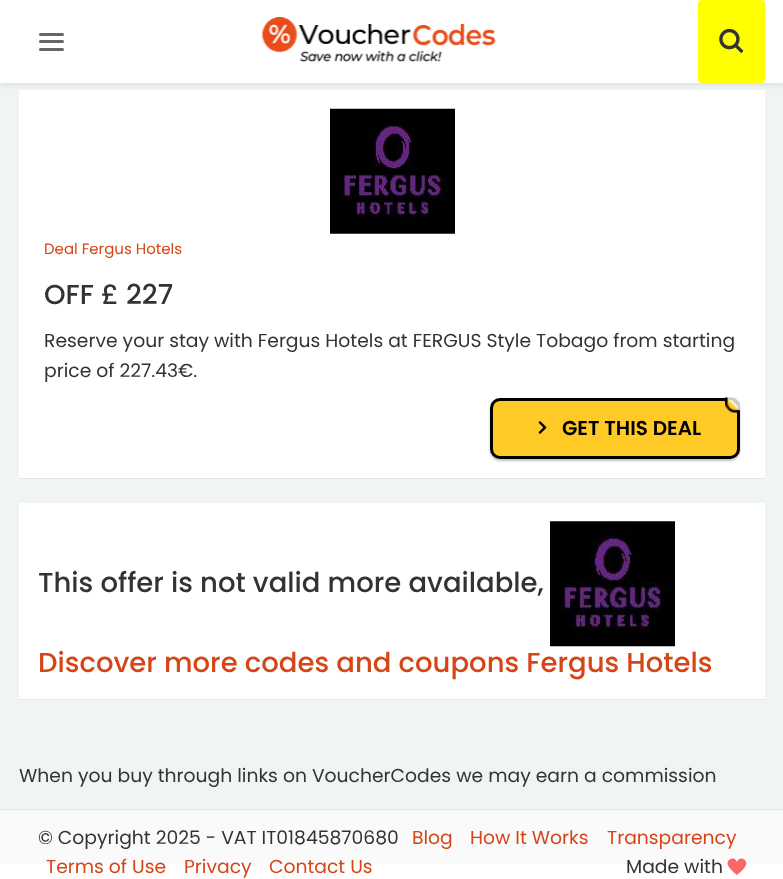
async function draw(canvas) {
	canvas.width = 783;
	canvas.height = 879;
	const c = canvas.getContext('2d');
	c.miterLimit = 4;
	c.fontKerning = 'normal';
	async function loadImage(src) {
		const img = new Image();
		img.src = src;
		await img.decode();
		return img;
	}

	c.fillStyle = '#fff';
	c.fillRect(0, 0, 783, 879);
	c.fillStyle = '#f1f4f5';
	c.fillRect(0, 83, 783, 726);
	c.fillStyle = '#0000000d';
	c.filter = 'blur(0.5px)';
	c.beginPath();
	c.rect(19, 91, 746, 388);
	c.fill();
	c.filter = 'none';
	c.fillStyle = '#fff';
	c.fillRect(19, 90, 746, 388);
	c.fillStyle = '#00000014';
	c.filter = 'blur(2.5px)';
	c.beginPath();
	c.rect(0, 3, 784, 82);
	c.fill();
	c.filter = 'none';
	c.fillStyle = '#fff';
	c.fillRect(0, 0, 783, 83);
	c.fillStyle = '#666';
	c.beginPath();
	c.roundRect(39, 33, 25, 3, 1.5);
	c.fill();
	c.beginPath();
	c.roundRect(39, 40, 25, 3, 1.5);
	c.fill();
	c.beginPath();
	c.roundRect(39, 48, 25, 3, 1.5);
	c.fill();
	c.drawImage(await loadImage('img1.png'), 261, 17, 235, 45);
	c.fillStyle = '#ff0';
	c.beginPath();
	c.roundRect(698, 0, 67, 83, 4);
	c.fill();
	c.drawImage(await loadImage('img2.png'), 719, 28, 25, 25);
	c.drawImage(await loadImage('img3.png'), 330, 108, 125, 126);
	c.font = '15px Poppins';
	c.fillStyle = '#d54515';
	c.fillText('Deal Fergus Hotels', 44, 254);
	c.font = '500 27.5px Poppins';
	c.fillStyle = '#333';
	c.fillText('OFF £ 227', 44, 304);
	c.font = '18.75px Poppins';
	c.fillText('Reserve your stay with Fergus Hotels at FERGUS Style Tobago from starting', 44, 347);
	c.fillText('price of 227.43€.', 44, 377);
	c.fillStyle = '#00000040';
	c.filter = 'blur(1px)';
	c.beginPath();
	c.roundRect(490, 400, 250, 61, 10);
	c.fill();
	c.filter = 'none';
	c.fillStyle = '#ffc926';
	c.beginPath();
	c.roundRect(491.5, 399.5, 247, 58, 8.5);
	c.fill();
	c.strokeStyle = '#000';
	c.lineWidth = 3;
	c.stroke();
	c.drawImage(await loadImage('img4.png'), 725, 397, 15, 16);
	c.drawImage(await loadImage('img5.png'), 538, 421, 9, 13);
	c.font = '600 20px Poppins';
	c.fillStyle = '#000';
	c.fillText('GET THIS DEAL', 562, 435);
	c.fillStyle = '#0000000d';
	c.filter = 'blur(0.5px)';
	c.beginPath();
	c.rect(19, 504, 746, 196);
	c.fill();
	c.filter = 'none';
	c.fillStyle = '#fff';
	c.fillRect(19, 503, 746, 196);
	c.font = '500 27.5px Poppins';
	c.fillStyle = '#333';
	c.fillText('This offer is not valid more available,', 38, 592);
	c.drawImage(await loadImage('img6.png'), 550, 521, 125, 126);
	c.fillStyle = '#d54515';
	c.fillText('Discover more codes and coupons Fergus Hotels', 38, 672);
	c.font = '18.75px Poppins';
	c.fillStyle = '#333';
	c.fillText('When you buy through links on VoucherCodes we may earn a commission', 19, 782);
	c.fillStyle = '#fafafa';
	c.fillRect(0, 810, 783, 54);
	c.fillStyle = '#e4eaec';
	c.fillRect(0, 809, 783, 1);
	c.fillStyle = '#333';
	c.fillText('© Copyright 2025 - VAT IT01845870680', 38, 844);
	c.fillStyle = '#d54515';
	for (const [text, x, y] of [
		['Blog', 412, 844],
		['How It Works', 470, 844],
		['Transparency', 607, 844],
		['Terms of Use', 46, 873],
		['Privacy', 184, 873],
		['Contact Us', 269, 873],
	]) {
		c.fillText(text, x, y);
	}
	c.fillStyle = '#333';
	c.fillText('Made with', 626, 873);
	c.drawImage(await loadImage('img7.png'), 727, 858, 20, 17);
}

draw(document.querySelector('canvas'));
